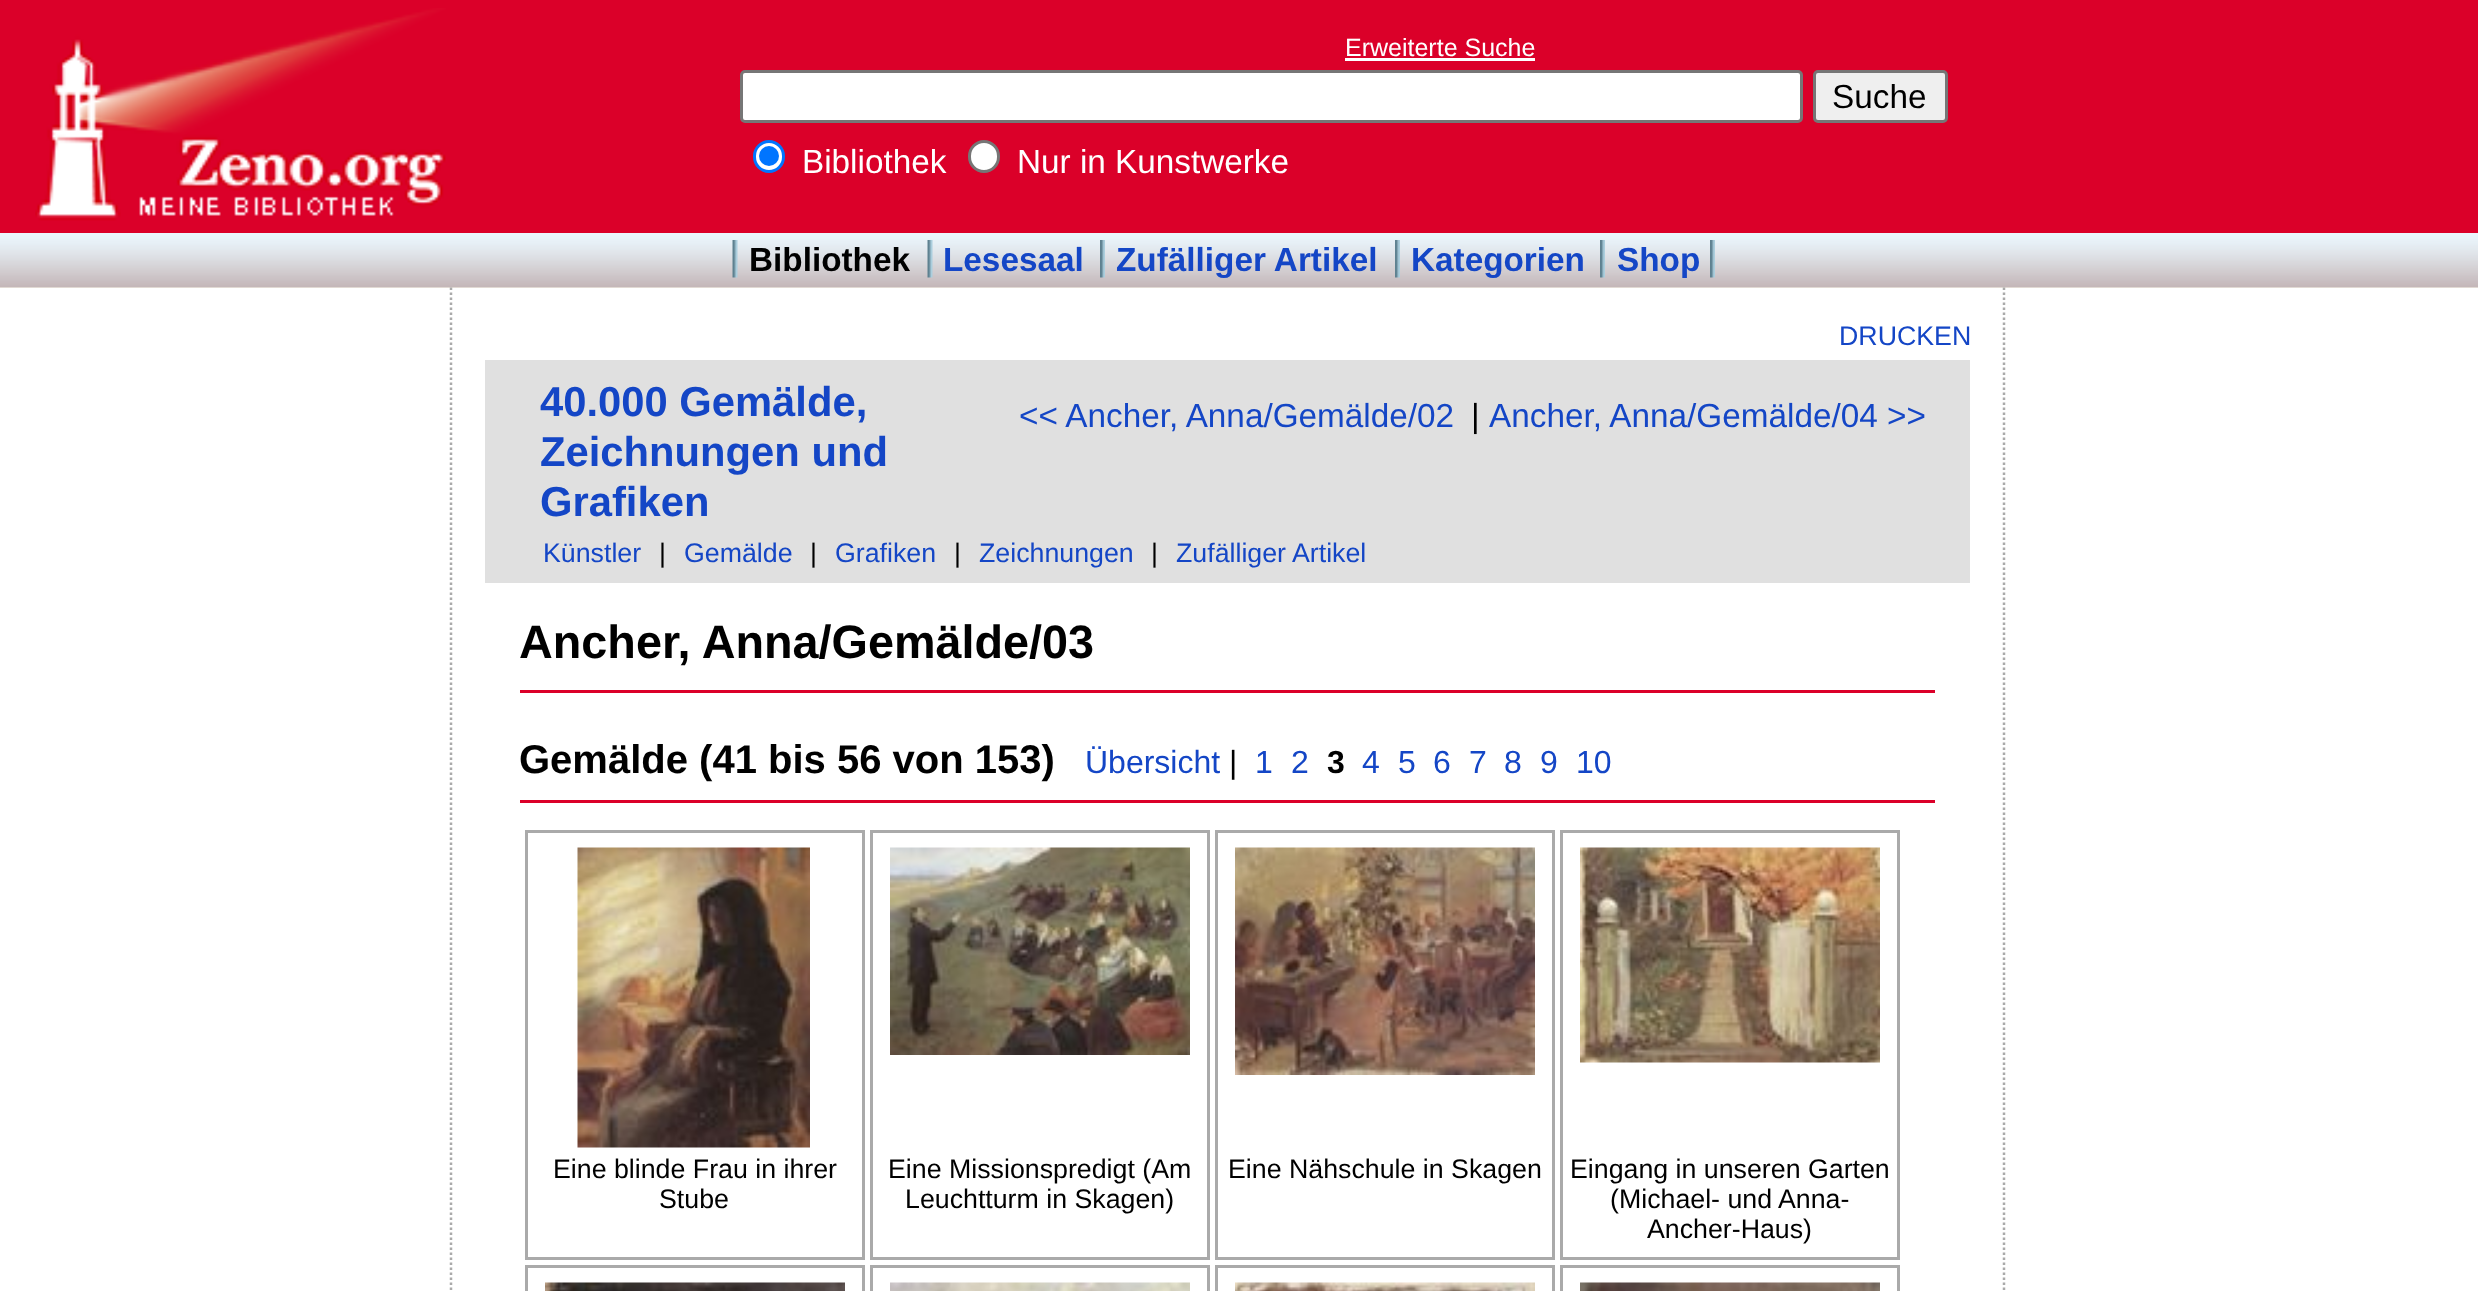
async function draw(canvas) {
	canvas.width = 2478;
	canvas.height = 1291;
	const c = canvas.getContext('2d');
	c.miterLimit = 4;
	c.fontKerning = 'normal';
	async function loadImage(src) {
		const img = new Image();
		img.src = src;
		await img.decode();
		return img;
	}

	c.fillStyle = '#fff';
	c.fillRect(0, 0, 2478, 1291);
	c.fillStyle = '#db0029';
	c.fillRect(0, 0, 2478, 233);
	c.drawImage(await loadImage('img1.png'), 35, 8, 411, 213);
	c.font = '25px Liberation Sans';
	c.fillStyle = '#fff';
	c.fillText('Erweiterte Suche', 1345, 56);
	c.fillRect(1345, 58, 190, 3);
	c.beginPath();
	c.roundRect(741.5, 71.5, 1060, 50, 3.5);
	c.fill();
	c.strokeStyle = '#767676';
	c.lineWidth = 3;
	c.stroke();
	c.fillStyle = '#efefef';
	c.beginPath();
	c.roundRect(1814.5, 71.5, 132, 50, 3.5);
	c.fill();
	c.stroke();
	c.font = '33.3px Liberation Sans';
	c.fillStyle = '#000';
	c.fillText('Suche', 1832, 108);
	c.fillStyle = '#fff';
	c.beginPath();
	c.roundRect(754.5, 141.5, 29, 30, 14.5);
	c.fill();
	c.strokeStyle = '#0075ff';
	c.stroke();
	c.fillStyle = '#0075ff';
	c.beginPath();
	c.arc(769, 156, 10, 0, 2 * Math.PI);
	c.fill();
	c.fillStyle = '#fff';
	c.fillText('Bibliothek', 802, 173);
	c.beginPath();
	c.roundRect(969.5, 141.5, 29, 30, 14.5);
	c.fill();
	c.strokeStyle = '#767676';
	c.stroke();
	c.fillText('Nur in Kunstwerke', 1017, 173);
	c.fillStyle = '#fffdee';
	c.fillRect(0, 287, 2478, 1);
	c.drawImage(await loadImage('img2.png'), 0, 233, 2478, 55);
	c.drawImage(await loadImage('img3.png'), 732, 240, 6, 38);
	c.font = 'bold 33.3px Liberation Sans';
	c.fillStyle = '#000';
	c.fillText('Bibliothek', 749, 271);
	c.drawImage(await loadImage('img3.png'), 927, 240, 6, 38);
	c.fillStyle = '#1446c6';
	c.fillText('Lesesaal', 943, 271);
	c.drawImage(await loadImage('img4.png'), 1100, 240, 5, 38);
	c.fillText('Zufälliger Artikel', 1116, 271);
	c.drawImage(await loadImage('img5.png'), 1395, 240, 5, 38);
	c.fillText('Kategorien', 1411, 271);
	c.drawImage(await loadImage('img5.png'), 1600, 240, 5, 38);
	c.fillText('Shop', 1617, 271);
	c.drawImage(await loadImage('img4.png'), 1710, 240, 5, 38);
	c.beginPath();
	c.moveTo(2004, 287.5);
	c.lineTo(2004, 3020);
	c.strokeStyle = '#aaa';
	c.lineWidth = 2.5;
	c.setLineDash([2.5, 2.5]);
	c.stroke();
	c.beginPath();
	c.moveTo(451, 287.5);
	c.lineTo(451, 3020);
	c.stroke();
	c.font = '26.75px Liberation Sans';
	c.fillText('DRUCKEN', 1839, 345);
	c.fillStyle = '#e0e0e0';
	c.fillRect(485, 360, 1485, 223);
	c.font = 'bold 41.75px Liberation Sans';
	c.fillStyle = '#1446c6';
	for (const [text, x, y] of [
		['40.000 Gemälde,', 540, 416],
		['Zeichnungen und', 540, 466],
		['Grafiken', 540, 516],
	]) {
		c.fillText(text, x, y);
	}
	c.font = '33.3px Liberation Sans';
	c.fillText('<< Ancher, Anna/Gemälde/02', 1019, 427);
	c.fillStyle = '#000';
	c.fillText('|', 1471, 427);
	c.fillStyle = '#1446c6';
	c.fillText('Ancher, Anna/Gemälde/04 >>', 1489, 427);
	c.font = '26.75px Liberation Sans';
	c.fillText('Künstler', 543, 562);
	c.fillStyle = '#000';
	c.fillText('|', 659, 562);
	c.fillStyle = '#1446c6';
	c.fillText('Gemälde', 684, 562);
	c.fillStyle = '#000';
	c.fillText('|', 810, 562);
	c.fillStyle = '#1446c6';
	c.fillText('Grafiken', 835, 562);
	c.fillStyle = '#000';
	c.fillText('|', 954, 562);
	c.fillStyle = '#1446c6';
	c.fillText('Zeichnungen', 979, 562);
	c.fillStyle = '#000';
	c.fillText('|', 1151, 562);
	c.fillStyle = '#1446c6';
	c.fillText('Zufälliger Artikel', 1176, 562);
	c.fillStyle = '#db0029';
	c.fillRect(520, 690, 1415, 3);
	c.font = 'bold 46.75px Liberation Sans';
	c.fillStyle = '#000';
	c.fillText('Ancher, Anna/Gemälde/03', 519, 658);
	c.fillStyle = '#db0029';
	c.fillRect(520, 800, 1415, 3);
	c.font = 'bold 40px Liberation Sans';
	c.fillStyle = '#000';
	c.fillText('Gemälde (41 bis 56 von 153)', 519, 773);
	c.font = '32px Liberation Sans';
	c.fillStyle = '#1446c6';
	c.fillText('Übersicht', 1085, 773);
	c.fillStyle = '#000';
	c.fillText('|', 1229, 773);
	c.fillStyle = '#1446c6';
	c.fillText('1', 1255, 773);
	c.fillText('2', 1291, 773);
	c.font = 'bold 32px Liberation Sans';
	c.fillStyle = '#000';
	c.fillText('3', 1327, 773);
	c.font = '32px Liberation Sans';
	c.fillStyle = '#1446c6';
	for (const [text, x, y] of [
		['4', 1362, 773],
		['5', 1398, 773],
		['6', 1433, 773],
		['7', 1469, 773],
		['8', 1504, 773],
		['9', 1540, 773],
		['10', 1576, 773],
	]) {
		c.fillText(text, x, y);
	}
	c.lineWidth = 3;
	c.setLineDash([]);
	c.strokeRect(526.5, 831.5, 337, 427);
	c.drawImage(await loadImage('img6.png'), 577, 847, 233, 301);
	c.font = '26.75px Liberation Sans';
	c.fillStyle = '#000';
	c.fillText('Eine blinde Frau in ihrer', 553, 1178);
	c.fillText('Stube', 659, 1208);
	c.strokeRect(871.5, 831.5, 337, 427);
	c.drawImage(await loadImage('img7.png'), 890, 847, 300, 208);
	c.fillText('Eine Missionspredigt (Am', 888, 1178);
	c.fillText('Leuchtturm in Skagen)', 905, 1208);
	c.strokeRect(1216.5, 831.5, 337, 427);
	c.drawImage(await loadImage('img8.png'), 1235, 847, 300, 228);
	c.fillText('Eine Nähschule in Skagen', 1228, 1178);
	c.strokeRect(1561.5, 831.5, 337, 427);
	c.drawImage(await loadImage('img9.png'), 1580, 847, 300, 216);
	for (const [text, x, y] of [
		['Eingang in unseren Garten', 1570, 1178],
		['(Michael- und Anna-', 1610, 1208],
		['Ancher-Haus)', 1647, 1238],
	]) {
		c.fillText(text, x, y);
	}
	c.strokeRect(526.5, 1266.5, 337, 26);
	c.drawImage(await loadImage('img10.png'), 545, 1282, 300, 9);
	c.strokeRect(871.5, 1266.5, 337, 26);
	c.drawImage(await loadImage('img11.png'), 890, 1282, 300, 9);
	c.strokeRect(1216.5, 1266.5, 337, 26);
	c.drawImage(await loadImage('img12.png'), 1235, 1282, 300, 9);
	c.strokeRect(1561.5, 1266.5, 337, 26);
	c.drawImage(await loadImage('img13.png'), 1580, 1282, 300, 9);
}

draw(document.querySelector('canvas'));
